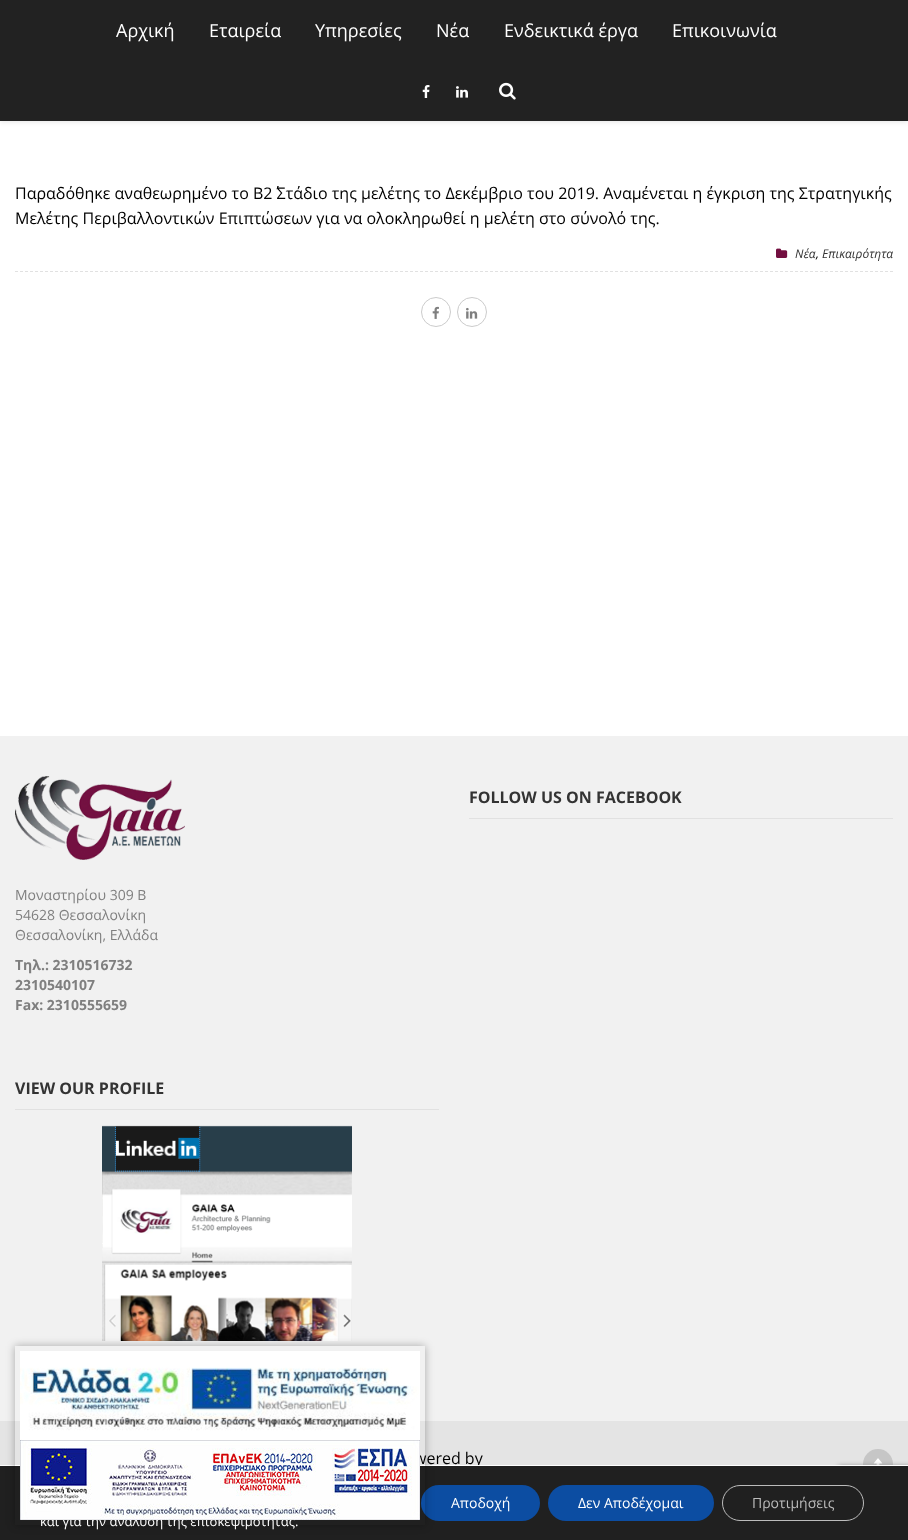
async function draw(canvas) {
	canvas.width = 908;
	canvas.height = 1540;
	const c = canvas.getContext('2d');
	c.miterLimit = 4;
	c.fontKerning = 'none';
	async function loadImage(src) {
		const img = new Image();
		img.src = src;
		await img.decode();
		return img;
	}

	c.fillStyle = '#fff';
	c.fillRect(0, 0, 908, 1540);
	c.fillStyle = '#0000001a';
	c.filter = 'blur(2.5px)';
	c.beginPath();
	c.rect(0, 1, 908, 121);
	c.fill();
	c.filter = 'none';
	c.fillStyle = '#222';
	c.fillRect(0, 0, 908, 121);
	c.font = '18px Open Sans';
	c.fillStyle = '#fff';
	for (const [text, x, y] of [
		['Αρχική', 116, 37],
		['Εταιρεία', 209, 37],
		['Υπηρεσίες', 315, 37],
		['Νέα', 436, 37],
		['Ενδεικτικά έργα', 504, 37],
		['Επικοινωνία', 672, 37],
	]) {
		c.fillText(text, x, y);
	}
	c.drawImage(await loadImage('img1.png'), 422, 85, 8, 13);
	c.drawImage(await loadImage('img2.png'), 456, 86, 12, 12);
	c.drawImage(await loadImage('img3.png'), 499, 82, 17, 18);
	c.font = '16px Open Sans';
	c.fillStyle = '#000';
	c.fillText('Παραδόθηκε αναθεωρημένο το Β2΄ Στάδιο της μελέτης το Δεκέμβριο του 2019. Αναμένεται η έγκριση της Στρατηγικής', 15, 199);
	c.fillText('Μελέτης Περιβαλλοντικών Επιπτώσεων για να ολοκληρωθεί η μελέτη στο σύνολό της.', 15, 224);
	c.drawImage(await loadImage('img4.png'), 776, 248, 12, 10);
	c.font = 'italic 12px Open Sans';
	c.fillStyle = '#333';
	c.fillText('Nέα', 795, 258);
	c.fillStyle = '#000';
	c.fillText(',', 816, 258);
	c.fillStyle = '#333';
	c.fillText('Επικαιρότητα', 822, 258);
	c.beginPath();
	c.moveTo(15, 271.5);
	c.lineTo(893, 271.5);
	c.strokeStyle = '#e1e1e1';
	c.setLineDash([3, 2]);
	c.stroke();
	c.beginPath();
	c.arc(436, 312, 14.5, 0, 2 * Math.PI);
	c.strokeStyle = '#ccc';
	c.setLineDash([]);
	c.stroke();
	c.drawImage(await loadImage('img5.png'), 432, 306, 7, 13);
	c.beginPath();
	c.arc(472, 312, 14.5, 0, 2 * Math.PI);
	c.stroke();
	c.drawImage(await loadImage('img6.png'), 466, 307, 12, 12);
	c.fillStyle = '#f1f1f1';
	c.fillRect(0, 736, 908, 685);
	c.fillStyle = '#e1e1e1';
	c.fillRect(469, 818, 424, 1);
	c.font = 'bold 16px Open Sans';
	c.fillStyle = '#333';
	c.fillText('FOLLOW US ON FACEBOOK', 469, 803);
	c.drawImage(await loadImage('img7.png'), 15, 776, 170, 84);
	c.font = '14px Open Sans';
	c.fillStyle = '#7f7f7f';
	for (const [text, x, y] of [
		['Μοναστηρίου 309 Β', 15, 900],
		['54628 Θεσσαλονίκη', 15, 920],
		['Θεσσαλονίκη, Ελλάδα', 15, 940],
	]) {
		c.fillText(text, x, y);
	}
	c.font = 'bold 14px Open Sans';
	for (const [text, x, y] of [
		['Τηλ.: 2310516732', 15, 970],
		['2310540107', 15, 990],
		['Fax: 2310555659', 15, 1010],
	]) {
		c.fillText(text, x, y);
	}
	c.fillStyle = '#e1e1e1';
	c.fillRect(15, 1109, 424, 1);
	c.font = 'bold 16px Open Sans';
	c.fillStyle = '#333';
	c.fillText('VIEW OUR PROFILE', 15, 1094);
	c.drawImage(await loadImage('img8.png'), 102, 1125, 250, 216);
	c.fillStyle = '#e4e4e4';
	c.fillRect(0, 1421, 908, 44);
	c.font = '16px Open Sans';
	c.fillStyle = '#000';
	c.fillText('wered by', 414, 1464);
	c.fillStyle = '#c6c6c6';
	c.beginPath();
	c.arc(878, 1464, 15, 0, 2 * Math.PI);
	c.fill();
	c.drawImage(await loadImage('img9.png'), 873, 1458, 10, 7);
	c.fillStyle = '#808080';
	c.filter = 'blur(2.5px)';
	c.beginPath();
	c.roundRect(838, 1466, 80, 60, 2);
	c.fill();
	c.filter = 'none';
	c.fillStyle = '#202020';
	c.fillRect(0, 1466, 908, 74);
	c.fillStyle = '#0c4da2';
	c.beginPath();
	c.roundRect(421, 1485, 119, 36, 18);
	c.fill();
	c.save();
	c.beginPath();
	c.moveTo(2, 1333);
	c.lineTo(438, 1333);
	c.lineTo(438, 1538);
	c.lineTo(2, 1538);
	c.closePath();
	c.moveTo(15, 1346);
	c.lineTo(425, 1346);
	c.lineTo(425, 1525);
	c.lineTo(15, 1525);
	c.closePath();
	c.clip('evenodd');
	c.fillStyle = '#0000004d';
	c.filter = 'blur(4px)';
	c.beginPath();
	c.rect(15, 1346, 410, 179);
	c.fill();
	c.filter = 'none';
	c.restore();
	c.font = '13px Open Sans';
	c.fillStyle = '#fff';
	c.fillText('και για την ανάλυση της επισκεψιμότητας.', 40, 1526);
	c.drawImage(await loadImage('img10.png'), 20, 1351, 400, 169);
	c.fillRect(477, 1465, 431, 1);
	c.font = '14px Open Sans';
	c.fillText('Αποδοχή', 451, 1508);
	c.fillStyle = '#0c4da2';
	c.beginPath();
	c.roundRect(548, 1485, 166, 36, 18);
	c.fill();
	c.fillStyle = '#fff';
	c.fillText('Δεν Αποδέχομαι', 578, 1508);
	c.beginPath();
	c.roundRect(722.5, 1485.5, 141, 35, 17.5);
	c.strokeStyle = '#bcbcbc';
	c.stroke();
	c.fillStyle = '#bcbcbc';
	c.fillText('Προτιμήσεις', 752, 1508);
}

draw(document.querySelector('canvas'));
